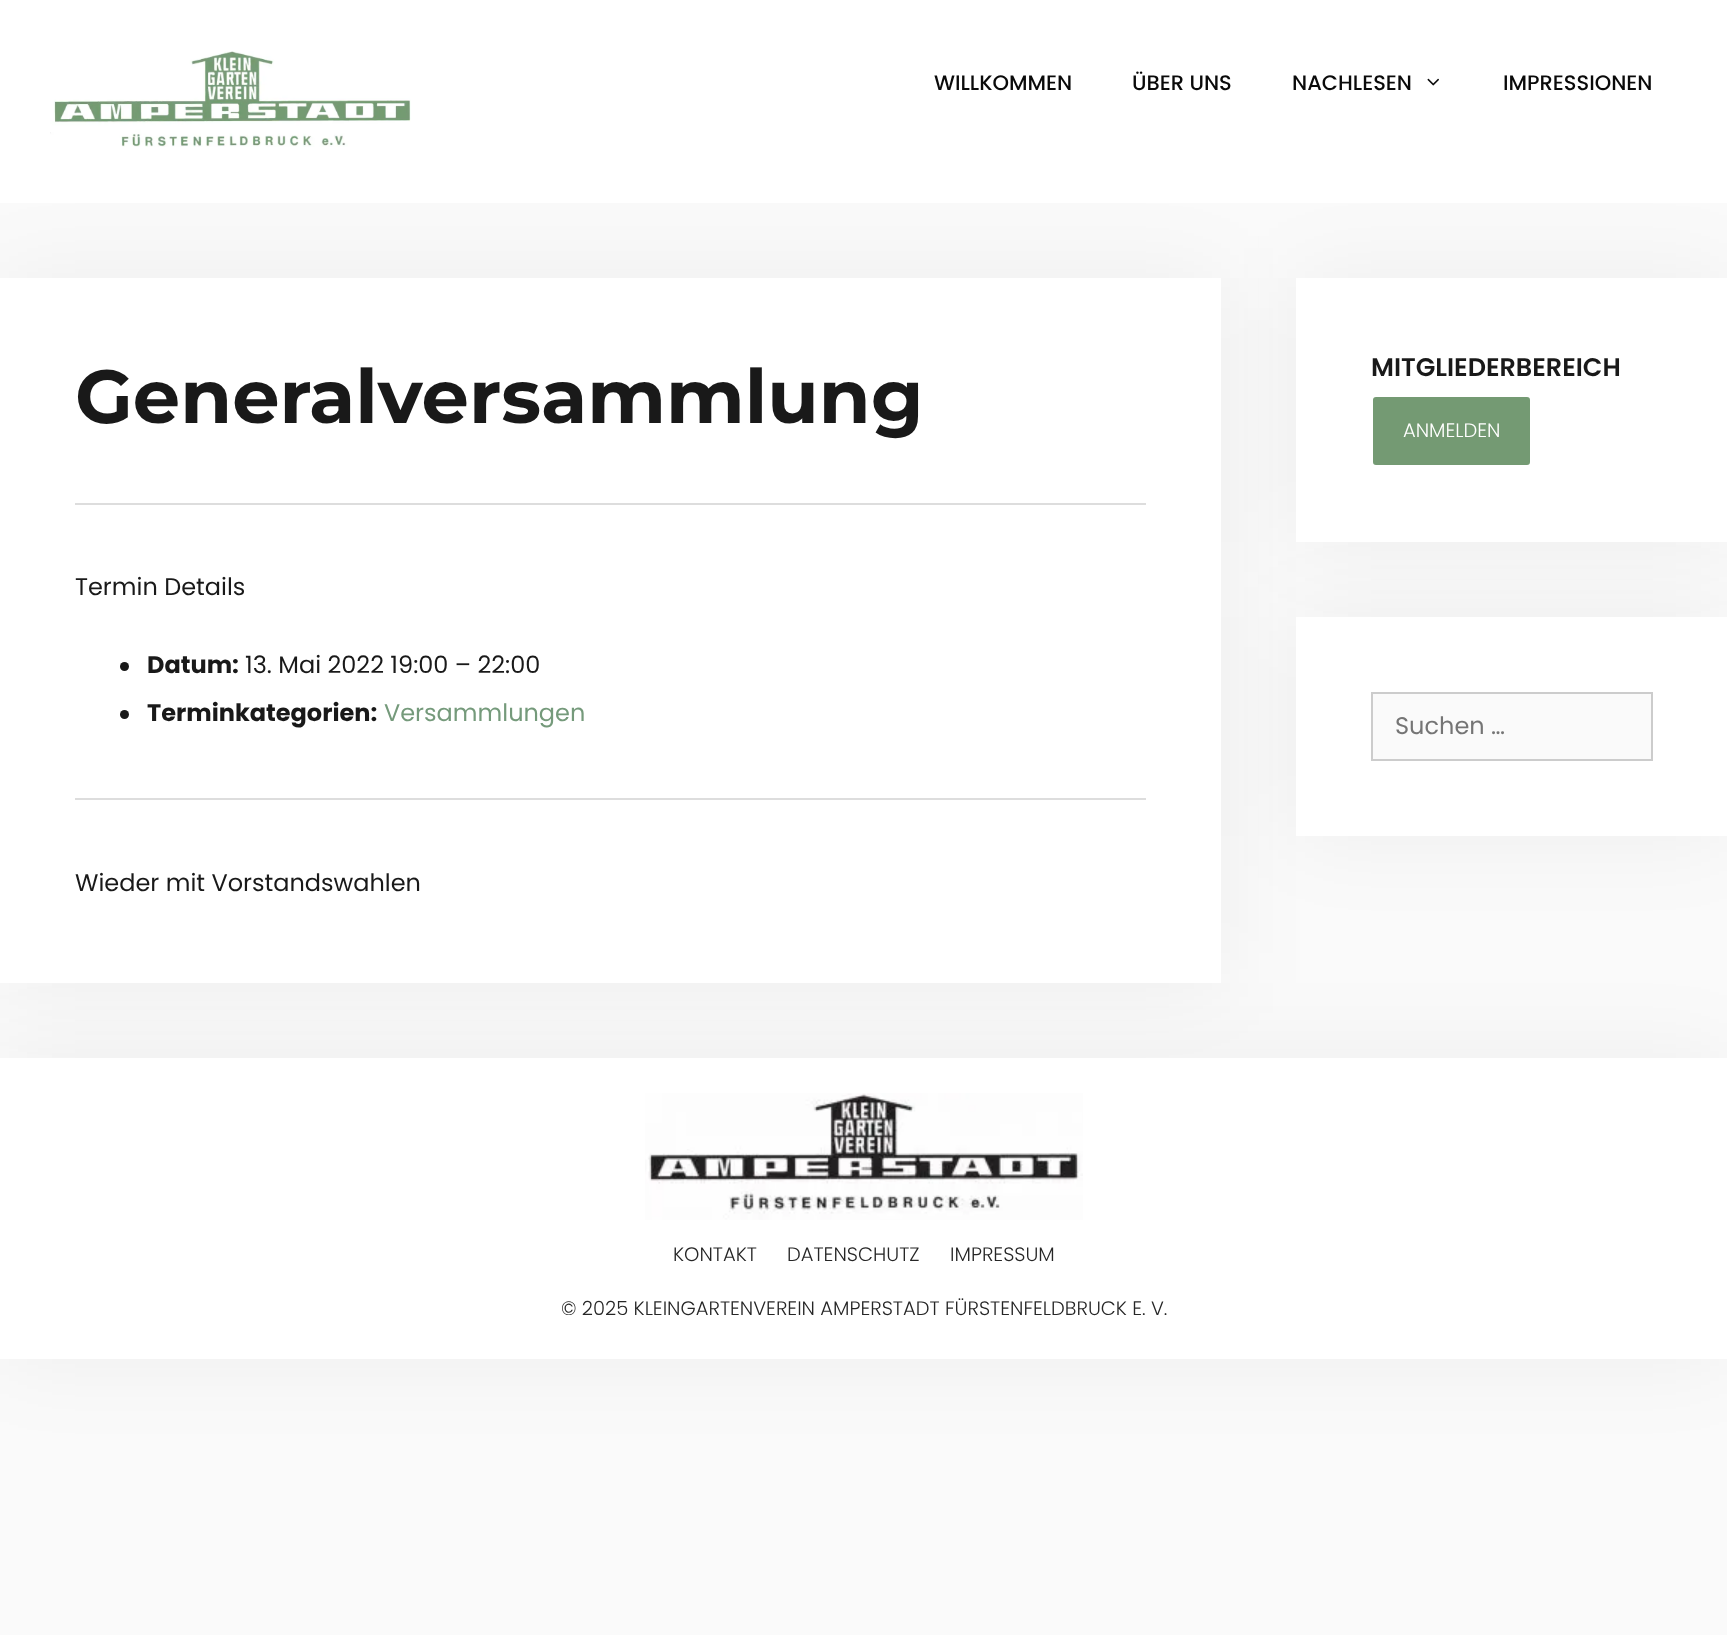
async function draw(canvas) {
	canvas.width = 1727;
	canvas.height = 1635;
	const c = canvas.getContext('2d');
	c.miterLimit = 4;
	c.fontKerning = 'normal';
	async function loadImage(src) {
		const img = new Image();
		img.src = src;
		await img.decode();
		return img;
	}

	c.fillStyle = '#fafafa';
	c.fillRect(0, 0, 1727, 1635);
	c.fillStyle = '#0000000d';
	c.filter = 'blur(45px)';
	c.beginPath();
	c.rect(0, 1058, 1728, 301);
	c.fill();
	c.filter = 'none';
	c.fillStyle = '#fff';
	c.fillRect(0, 1058, 1727, 301);
	c.fillStyle = '#0000000d';
	c.filter = 'blur(45px)';
	c.beginPath();
	c.rect(0, 278, 1221, 705);
	c.fill();
	c.filter = 'none';
	c.fillStyle = '#fff';
	c.fillRect(0, 278, 1221, 705);
	c.fillStyle = '#0000000d';
	c.filter = 'blur(45px)';
	c.beginPath();
	c.rect(1296, 278, 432, 264);
	c.fill();
	c.filter = 'none';
	c.fillStyle = '#fff';
	c.fillRect(0, 0, 1727, 203);
	c.drawImage(await loadImage('img1.png'), 50, 51, 361, 96);
	c.font = '500 21px Poppins';
	c.fillStyle = '#0a0a0a';
	for (const [text, x, y] of [
		['WILLKOMMEN', 934, 90],
		['ÜBER UNS', 1132, 90],
		['NACHLESEN', 1292, 90],
	]) {
		c.fillText(text, x, y);
	}
	c.drawImage(await loadImage('img2.png'), 1427, 78, 12, 8);
	c.fillText('IMPRESSIONEN', 1503, 90);
	c.font = 'bold 75px Montserrat';
	c.fillStyle = '#191919';
	c.fillText('Generalversammlung', 75, 423);
	c.fillStyle = '#ddd';
	c.fillRect(75, 503, 1071, 2);
	c.font = '24px Poppins';
	c.fillStyle = '#191919';
	c.fillText('Termin Details', 75, 595);
	c.beginPath();
	c.arc(124.5, 666.5, 4.5, 0, 2 * Math.PI);
	c.fill();
	c.font = 'bold 24px Poppins';
	c.fillText('Datum:', 147, 673);
	c.font = '24px Poppins';
	c.fillText('13. Mai 2022 19:00 – 22:00', 245, 673);
	c.beginPath();
	c.arc(124.5, 714.5, 4.5, 0, 2 * Math.PI);
	c.fill();
	c.font = 'bold 24px Poppins';
	c.fillText('Terminkategorien:', 147, 721);
	c.font = '24px Poppins';
	c.fillStyle = '#759a7b';
	c.fillText('Versammlungen', 384, 721);
	c.fillStyle = '#ddd';
	c.fillRect(75, 798, 1071, 2);
	c.fillStyle = '#191919';
	c.fillText('Wieder mit Vorstandswahlen', 75, 891);
	c.fillStyle = '#fff';
	c.fillRect(1296, 278, 431, 264);
	c.font = '600 25.5px Poppins';
	c.fillStyle = '#191919';
	c.fillText('MITGLIEDERBEREICH', 1371, 376);
	c.fillStyle = '#749a73';
	c.beginPath();
	c.roundRect(1372, 396, 159, 70, 4);
	c.fill();
	c.strokeStyle = '#fff';
	c.lineWidth = 2;
	c.stroke();
	c.font = '300 19.5px Poppins';
	c.fillStyle = '#fff';
	c.fillText('ANMELDEN', 1403, 437);
	c.fillStyle = '#0000000d';
	c.filter = 'blur(45px)';
	c.beginPath();
	c.rect(1296, 617, 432, 219);
	c.fill();
	c.filter = 'none';
	c.fillStyle = '#fff';
	c.fillRect(1296, 617, 431, 219);
	c.fillStyle = '#fafafa';
	c.beginPath();
	c.rect(1372, 693, 280, 67);
	c.fill();
	c.strokeStyle = '#ccc';
	c.stroke();
	c.font = '24px Poppins';
	c.fillStyle = '#757575';
	c.fillText('Suchen …', 1395, 734);
	c.drawImage(await loadImage('img3.png'), 645, 1093, 438, 127);
	c.font = '300 19.5px Poppins';
	c.fillStyle = '#262626';
	for (const [text, x, y] of [
		['KONTAKT', 673, 1261],
		['DATENSCHUTZ', 787, 1261],
		['IMPRESSUM', 950, 1261],
		['© 2025 KLEINGARTENVEREIN AMPERSTADT FÜRSTENFELDBRUCK E. V.', 561, 1315],
	]) {
		c.fillText(text, x, y);
	}
}

draw(document.querySelector('canvas'));
